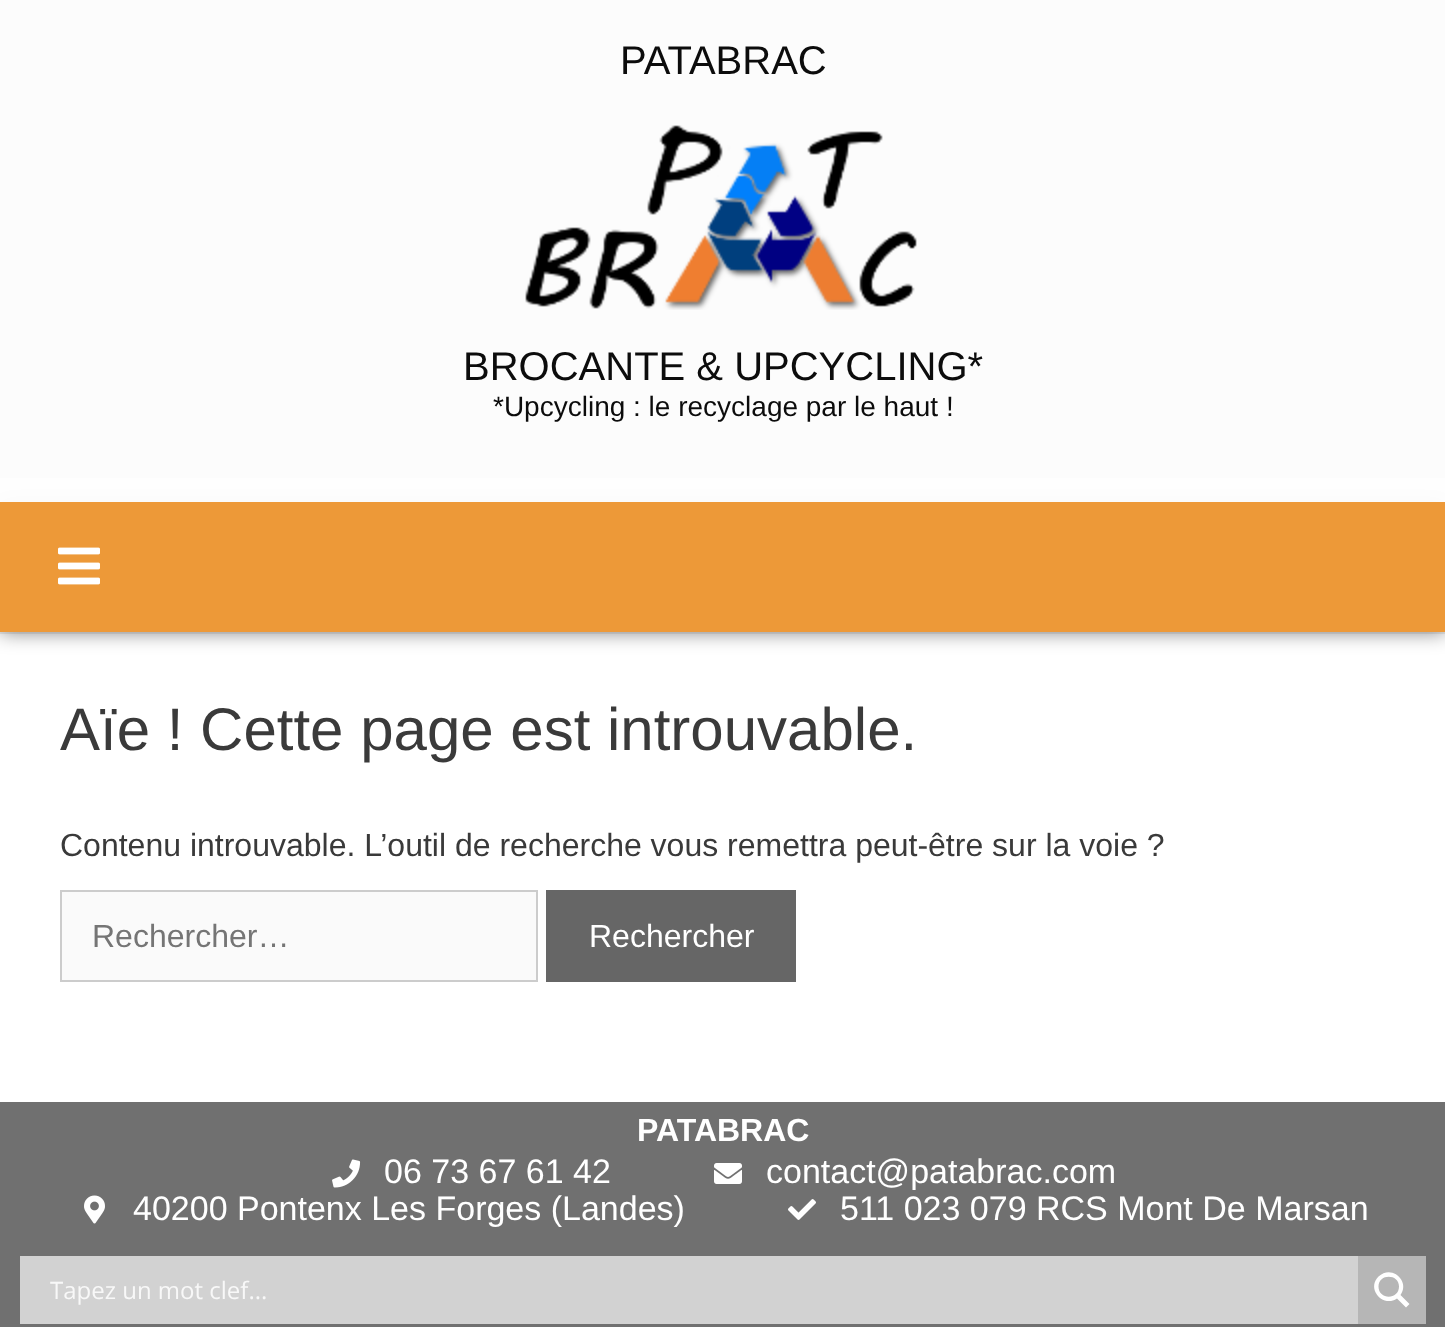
async function draw(canvas) {
	canvas.width = 1445;
	canvas.height = 1327;
	const c = canvas.getContext('2d');
	c.miterLimit = 4;
	c.fontKerning = 'normal';
	async function loadImage(src) {
		const img = new Image();
		img.src = src;
		await img.decode();
		return img;
	}

	c.fillStyle = '#ededed';
	c.fillRect(0, 0, 1445, 1327);
	c.fillStyle = '#fff';
	c.fillRect(0, 634, 1445, 468);
	c.fillStyle = '#00000080';
	c.filter = 'blur(10px)';
	c.beginPath();
	c.rect(0, 502, 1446, 130);
	c.fill();
	c.filter = 'none';
	for (const [x, y, w, h, color] of [
		[0, 0, 1445, 502, '#ffffff9e'],
		[0, 0, 1445, 502, '#ffffff80'],
		[0, 478, 1445, 24, '#ffffffb5'],
	]) {
		c.fillStyle = color;
		c.fillRect(x, y, w, h);
	}
	c.font = '40px Liberation Sans';
	c.fillStyle = '#0c0c0c';
	c.fillText('PATABRAC', 620, 74);
	c.drawImage(await loadImage('img1.png'), 525, 125, 392, 185);
	c.fillText('BROCANTE & UPCYCLING*', 463, 380);
	c.font = '28px Liberation Sans';
	c.fillText('*Upcycling : le recyclage par le haut !', 493, 416);
	c.fillStyle = '#ed9938';
	c.fillRect(0, 502, 1445, 130);
	c.drawImage(await loadImage('img2.png'), 58, 547, 42, 38);
	c.font = '60px Liberation Sans';
	c.fillStyle = '#3a3a3a';
	c.fillText('Aïe ! Cette page est introuvable.', 60, 750);
	c.font = '32px Liberation Sans';
	c.fillText('Contenu introuvable. L’outil de recherche vous remettra peut-être sur la voie ?', 60, 856);
	c.fillStyle = '#fafafa';
	c.beginPath();
	c.rect(61, 891, 476, 90);
	c.fill();
	c.strokeStyle = '#ccc';
	c.lineWidth = 2;
	c.stroke();
	c.fillStyle = '#757575';
	c.fillText('Rechercher…', 92, 947);
	c.fillStyle = '#666';
	c.fillRect(546, 890, 250, 92);
	c.fillStyle = '#fff';
	c.fillText('Rechercher', 589, 947);
	c.fillStyle = '#707070';
	c.fillRect(0, 1102, 1445, 225);
	c.font = 'bold 32px Liberation Sans';
	c.fillStyle = '#fff';
	c.fillText('PATABRAC', 637, 1141);
	c.drawImage(await loadImage('img3.png'), 332, 1159, 29, 29);
	c.font = '34px Liberation Sans';
	c.fillText('06 73 67 61 42', 384, 1183);
	c.drawImage(await loadImage('img4.png'), 714, 1163, 28, 21);
	c.fillText('contact@patabrac.com', 766, 1183);
	c.drawImage(await loadImage('img5.png'), 84, 1195, 21, 29);
	c.fillText('40200 Pontenx Les Forges (Landes)', 133, 1220);
	c.drawImage(await loadImage('img6.png'), 788, 1199, 28, 21);
	c.fillText('511 023 079 RCS Mont De Marsan', 840, 1220);
	c.fillStyle = '#d2d2d2';
	c.fillRect(20, 1256, 1338, 68);
	c.font = '24px Open Sans';
	c.fillStyle = '#f8f8f8';
	c.fillText('Tapez un mot clef...', 50, 1299);
	c.fillStyle = '#b6b6b6';
	c.fillRect(1358, 1256, 68, 68);
	c.fillStyle = '#fff';
	c.beginPath();
	c.moveTo(1409.5, 1304);
	c.lineTo(1400.5, 1295);
	c.bezierCurveTo(1410.5, 1281, 1391.5, 1264, 1378.5, 1276.5);
	c.bezierCurveTo(1366, 1289, 1383, 1308, 1397, 1298.5);
	c.lineTo(1406, 1307.5);
	c.closePath();
	c.moveTo(1378.5, 1286.5);
	c.bezierCurveTo(1378.5, 1273.5, 1399, 1273.5, 1399, 1286.5);
	c.bezierCurveTo(1399, 1300, 1378.5, 1300, 1378.5, 1286.5);
	c.closePath();
	c.fill();
}

draw(document.querySelector('canvas'));
